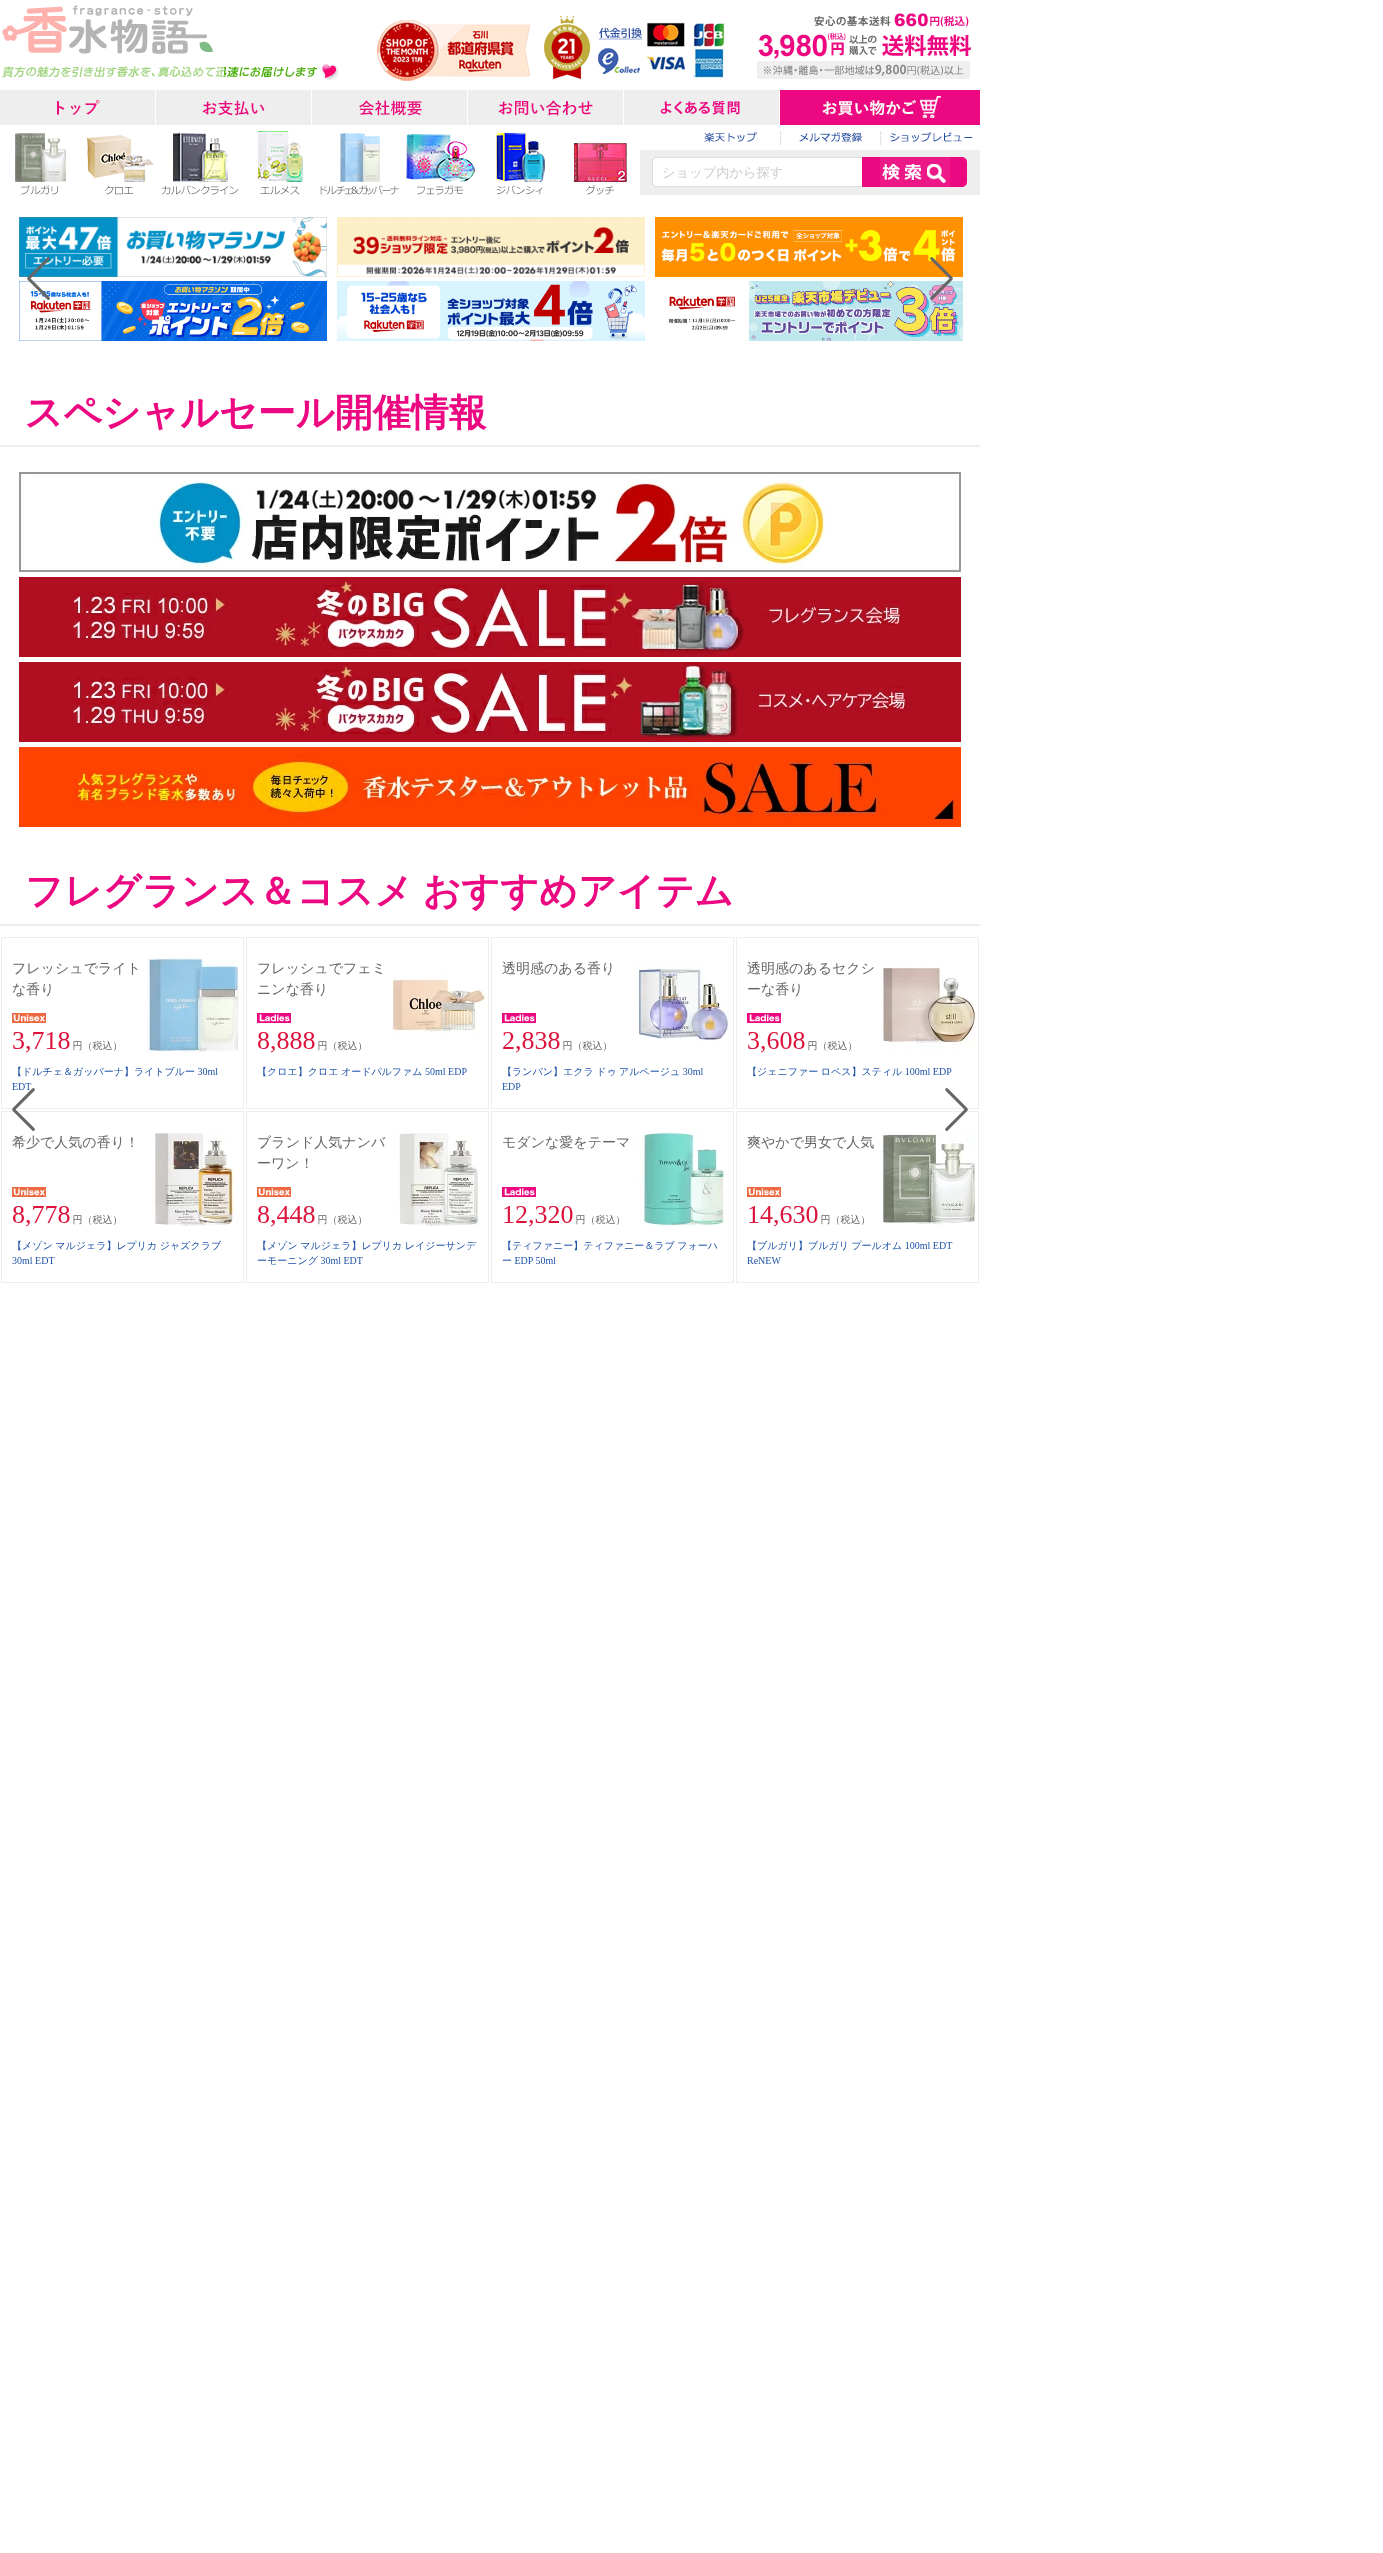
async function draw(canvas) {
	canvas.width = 1383;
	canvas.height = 2553;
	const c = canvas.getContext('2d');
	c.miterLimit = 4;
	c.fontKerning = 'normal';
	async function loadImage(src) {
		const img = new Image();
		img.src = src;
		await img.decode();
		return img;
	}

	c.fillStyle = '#fff';
	c.fillRect(0, 0, 1383, 2553);
	c.drawImage(await loadImage('img1.png'), 2, 5, 222, 73);
	c.drawImage(await loadImage('img2.png'), 224, 13, 747, 68);
	c.drawImage(await loadImage('img3.png'), 0, 90, 155, 35);
	c.drawImage(await loadImage('img4.png'), 156, 90, 155, 35);
	c.drawImage(await loadImage('img5.png'), 312, 90, 155, 35);
	c.drawImage(await loadImage('img6.png'), 468, 90, 155, 35);
	c.drawImage(await loadImage('img7.png'), 624, 90, 155, 35);
	c.drawImage(await loadImage('img8.png'), 780, 90, 200, 35);
	c.drawImage(await loadImage('img9.png'), 15, 133, 51, 62);
	c.drawImage(await loadImage('img10.png'), 87, 135, 67, 60);
	c.drawImage(await loadImage('img11.png'), 161, 132, 78, 63);
	c.drawImage(await loadImage('img12.png'), 258, 131, 45, 64);
	c.drawImage(await loadImage('img13.png'), 320, 133, 79, 62);
	c.drawImage(await loadImage('img14.png'), 406, 134, 69, 61);
	c.drawImage(await loadImage('img15.png'), 496, 133, 49, 62);
	c.drawImage(await loadImage('img16.png'), 574, 143, 53, 52);
	c.drawImage(await loadImage('img17.png'), 704, 132, 53, 10);
	c.drawImage(await loadImage('img18.png'), 780, 131, 82, 14);
	c.drawImage(await loadImage('img19.png'), 880, 131, 93, 14);
	c.drawImage(await loadImage('img20.png'), 640, 150, 340, 45);
	c.font = '500 13.25px WenQuanYi Zen Hei';
	c.fillStyle = '#ccc';
	c.fillText('ショップ内から探す', 662, 177);
	c.drawImage(await loadImage('img21.png'), 862, 157, 105, 30);
	c.drawImage(await loadImage('img22.png'), 19, 217, 944, 124);
	c.drawImage(await loadImage('img23.png'), 0, 393, 980, 434);
	c.fillStyle = '#eee';
	c.fillRect(0, 924, 980, 2);
	c.wordSpacing = '-2px';
	c.font = 'bold 38px WenQuanYi Zen Hei';
	c.fillStyle = '#ec0880';
	c.fillText('フレグランス＆コスメ おすすめアイテム', 25, 904);
	c.drawImage(await loadImage('img24.png'), 1, 937, 978, 346);
}

draw(document.querySelector('canvas'));
